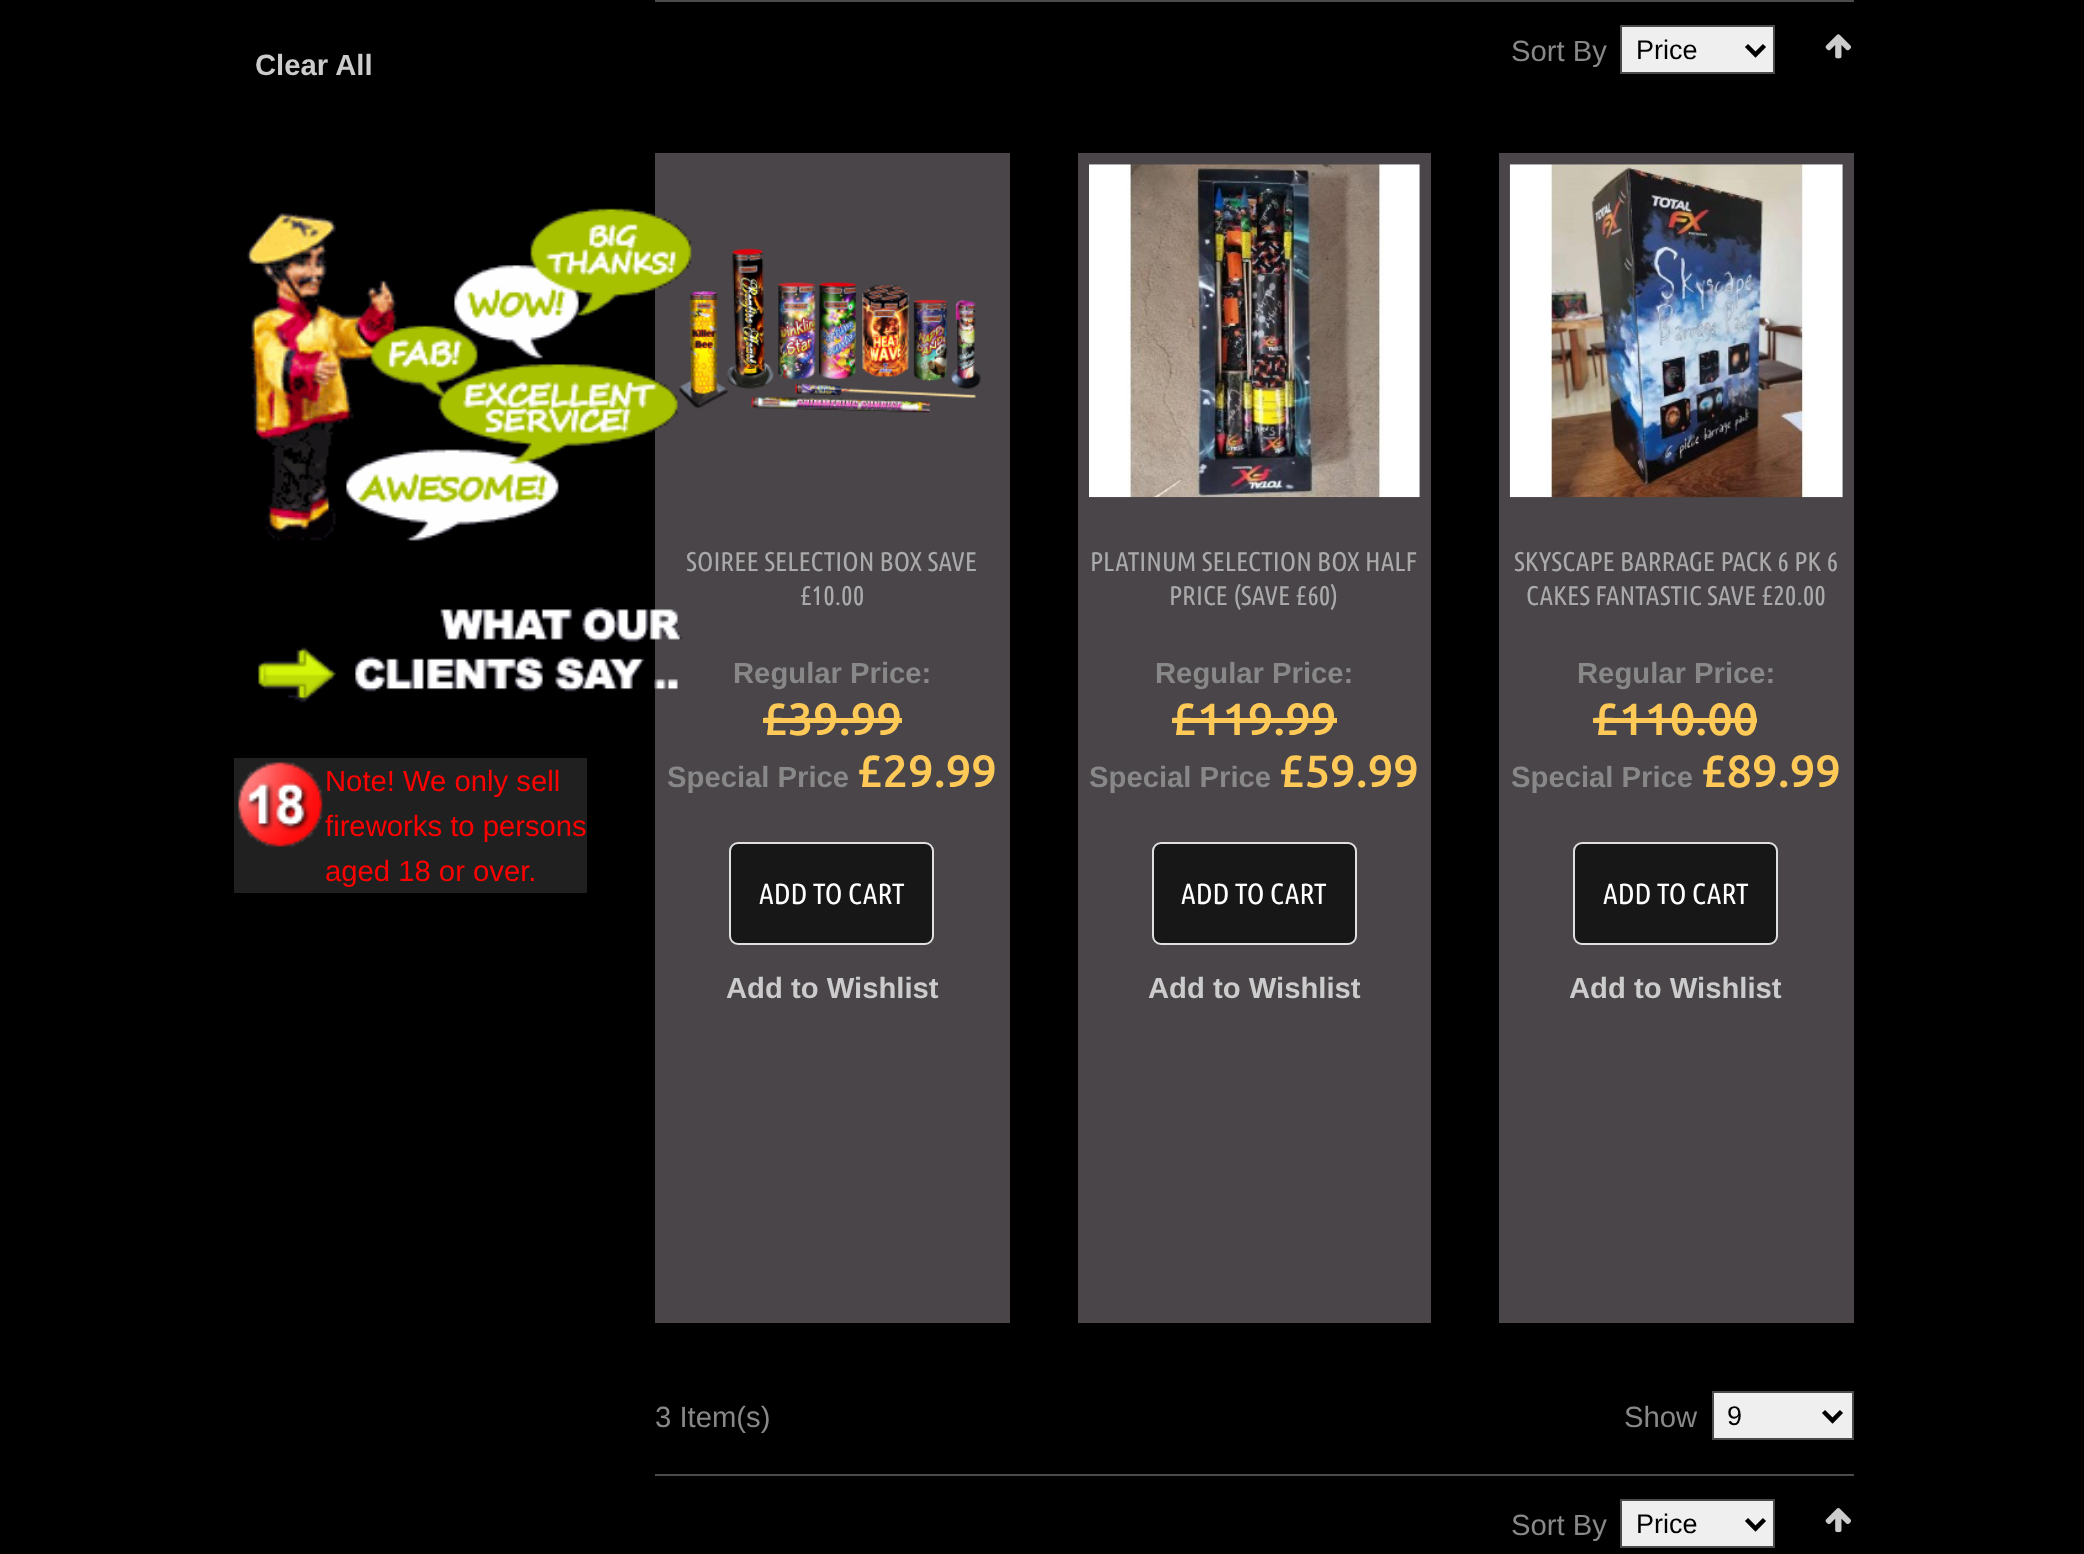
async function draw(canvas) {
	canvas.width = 2084;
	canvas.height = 1554;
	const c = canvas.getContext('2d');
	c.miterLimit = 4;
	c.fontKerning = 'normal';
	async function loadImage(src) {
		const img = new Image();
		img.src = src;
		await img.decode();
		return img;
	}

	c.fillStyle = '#000';
	c.fillRect(0, 0, 2084, 1554);
	c.font = 'bold 29.25px Liberation Sans';
	c.fillStyle = '#ccc';
	c.fillText('Clear All', 255, 75);
	c.fillStyle = '#494548';
	c.fillRect(655, 153, 355, 1170);
	c.drawImage(await loadImage('img5.png'), 679, 248, 302, 165);
	c.drawImage(await loadImage('img1.png'), 247, 208, 445, 333);
	c.drawImage(await loadImage('img2.png'), 258, 607, 425, 96);
	c.fillStyle = '#202020';
	c.fillRect(234, 758, 353, 135);
	c.drawImage(await loadImage('img3.png'), 238, 762, 85, 85);
	c.font = '29.25px Liberation Sans';
	c.fillStyle = '#f00';
	for (const [text, x, y] of [
		['Note! We only sell', 325, 791],
		['fireworks to persons', 325, 836],
		['aged 18 or over.', 325, 881],
	]) {
		c.fillText(text, x, y);
	}
	c.fillStyle = '#4d4a4c';
	c.fillRect(655, 0, 1199, 2);
	c.fillStyle = '#888';
	c.fillText('Sort By', 1511, 61);
	c.fillStyle = '#efefef';
	c.beginPath();
	c.rect(1621, 26, 153, 47);
	c.fill();
	c.strokeStyle = '#4d4a4c';
	c.lineWidth = 2;
	c.stroke();
	c.beginPath();
	c.moveTo(1746.5, 45.5);
	c.lineTo(1755.5, 54.5);
	c.lineTo(1764.5, 45.5);
	c.strokeStyle = '#000';
	c.lineWidth = 4.5;
	c.stroke();
	c.font = '27px Liberation Sans';
	c.fillStyle = '#000';
	c.fillText('Price', 1636, 59);
	c.drawImage(await loadImage('img4.png'), 1825, 34, 26, 25);
	c.font = '27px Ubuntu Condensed';
	c.fillStyle = '#aaa';
	c.fillText('SOIREE SELECTION BOX SAVE', 686, 571);
	c.fillText('£10.00', 800, 605);
	c.font = 'bold 29.25px Liberation Sans';
	c.fillStyle = '#888';
	c.fillText('Regular Price:', 733, 683);
	c.font = '500 45px Ubuntu';
	c.fillStyle = '#ffc958';
	c.fillText('£39.99', 762, 735);
	c.fillRect(763, 718, 139, 5);
	c.font = 'bold 29.25px Liberation Sans';
	c.fillStyle = '#888';
	c.fillText('Special Price', 667, 787);
	c.font = '500 45px Ubuntu';
	c.fillStyle = '#ffc958';
	c.fillText('£29.99', 857, 787);
	c.fillStyle = '#171717';
	c.beginPath();
	c.roundRect(730, 843, 203, 101, 8);
	c.fill();
	c.strokeStyle = '#e0e0e0';
	c.lineWidth = 2;
	c.stroke();
	c.font = '29.25px Ubuntu Condensed';
	c.fillStyle = '#fff';
	c.fillText('ADD TO CART', 759, 904);
	c.font = 'bold 29.25px Liberation Sans';
	c.fillStyle = '#ccc';
	c.fillText('Add to Wishlist', 726, 998);
	c.fillStyle = '#494548';
	c.fillRect(1078, 153, 353, 1170);
	c.drawImage(await loadImage('img6.png'), 1089, 164, 331, 334);
	c.font = '27px Ubuntu Condensed';
	c.fillStyle = '#aaa';
	c.fillText('PLATINUM SELECTION BOX HALF', 1090, 571);
	c.fillText('PRICE (SAVE £60)', 1169, 605);
	c.font = 'bold 29.25px Liberation Sans';
	c.fillStyle = '#888';
	c.fillText('Regular Price:', 1155, 683);
	c.font = '500 45px Ubuntu';
	c.fillStyle = '#ffc958';
	c.fillText('£119.99', 1171, 735);
	c.fillRect(1172, 718, 165, 5);
	c.font = 'bold 29.25px Liberation Sans';
	c.fillStyle = '#888';
	c.fillText('Special Price', 1089, 787);
	c.font = '500 45px Ubuntu';
	c.fillStyle = '#ffc958';
	c.fillText('£59.99', 1279, 787);
	c.fillStyle = '#171717';
	c.beginPath();
	c.roundRect(1153, 843, 203, 101, 8);
	c.fill();
	c.stroke();
	c.font = '29.25px Ubuntu Condensed';
	c.fillStyle = '#fff';
	c.fillText('ADD TO CART', 1181, 904);
	c.font = 'bold 29.25px Liberation Sans';
	c.fillStyle = '#ccc';
	c.fillText('Add to Wishlist', 1148, 998);
	c.fillStyle = '#494548';
	c.fillRect(1499, 153, 355, 1170);
	c.drawImage(await loadImage('img7.png'), 1509, 164, 334, 334);
	c.font = '27px Ubuntu Condensed';
	c.fillStyle = '#aaa';
	c.fillText('SKYSCAPE BARRAGE PACK 6 PK 6', 1514, 571);
	c.fillText('CAKES FANTASTIC SAVE £20.00', 1526, 605);
	c.font = 'bold 29.25px Liberation Sans';
	c.fillStyle = '#888';
	c.fillText('Regular Price:', 1577, 683);
	c.font = '500 45px Ubuntu';
	c.fillStyle = '#ffc958';
	c.fillText('£110.00', 1593, 735);
	c.fillRect(1593, 718, 164, 5);
	c.font = 'bold 29.25px Liberation Sans';
	c.fillStyle = '#888';
	c.fillText('Special Price', 1511, 787);
	c.font = '500 45px Ubuntu';
	c.fillStyle = '#ffc958';
	c.fillText('£89.99', 1701, 787);
	c.fillStyle = '#171717';
	c.beginPath();
	c.roundRect(1574, 843, 203, 101, 8);
	c.fill();
	c.stroke();
	c.font = '29.25px Ubuntu Condensed';
	c.fillStyle = '#fff';
	c.fillText('ADD TO CART', 1603, 904);
	c.font = 'bold 29.25px Liberation Sans';
	c.fillStyle = '#ccc';
	c.fillText('Add to Wishlist', 1569, 998);
	c.fillStyle = '#4d4a4c';
	c.fillRect(655, 1474, 1199, 2);
	c.font = '29.25px Liberation Sans';
	c.fillStyle = '#888';
	c.fillText('3 Item(s)', 655, 1427);
	c.fillText('Show', 1624, 1427);
	c.fillStyle = '#efefef';
	c.beginPath();
	c.rect(1713, 1392, 140, 47);
	c.fill();
	c.strokeStyle = '#4d4a4c';
	c.stroke();
	c.beginPath();
	c.moveTo(1823.5, 1411.5);
	c.lineTo(1832.5, 1420.5);
	c.lineTo(1841.5, 1411.5);
	c.strokeStyle = '#000';
	c.lineWidth = 4.5;
	c.stroke();
	c.font = '27px Liberation Sans';
	c.fillStyle = '#000';
	c.fillText('9', 1727, 1425);
	c.font = '29.25px Liberation Sans';
	c.fillStyle = '#888';
	c.fillText('Sort By', 1511, 1535);
	c.fillStyle = '#efefef';
	c.beginPath();
	c.rect(1621, 1500, 153, 47);
	c.fill();
	c.strokeStyle = '#4d4a4c';
	c.lineWidth = 2;
	c.stroke();
	c.beginPath();
	c.moveTo(1746.5, 1519.5);
	c.lineTo(1755.5, 1528.5);
	c.lineTo(1764.5, 1519.5);
	c.strokeStyle = '#000';
	c.lineWidth = 4.5;
	c.stroke();
	c.font = '27px Liberation Sans';
	c.fillStyle = '#000';
	c.fillText('Price', 1636, 1533);
	c.drawImage(await loadImage('img8.png'), 1825, 1508, 26, 25);
}

draw(document.querySelector('canvas'));
